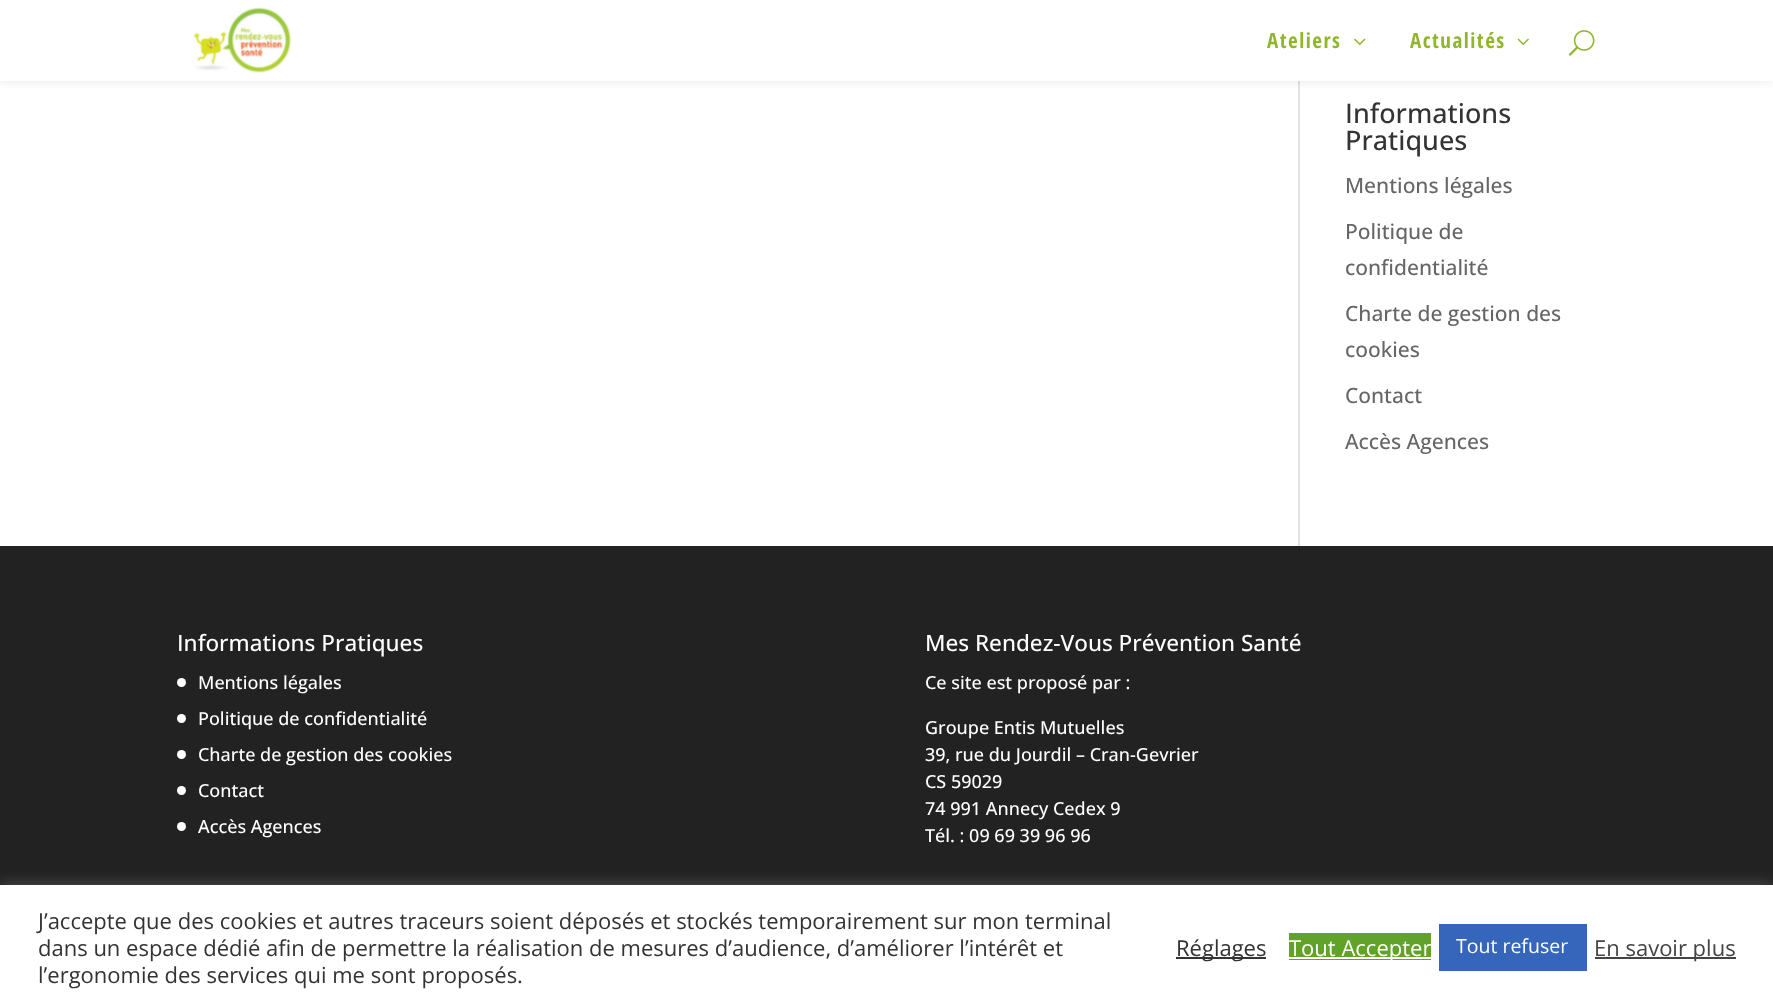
async function draw(canvas) {
	canvas.width = 1773;
	canvas.height = 1007;
	const c = canvas.getContext('2d');
	c.miterLimit = 4;
	c.fontKerning = 'normal';
	async function loadImage(src) {
		const img = new Image();
		img.src = src;
		await img.decode();
		return img;
	}

	c.fillStyle = '#fff';
	c.fillRect(0, 0, 1773, 1007);
	c.fillStyle = '#e2e2e2';
	c.fillRect(1298, 81, 2, 465);
	c.fillStyle = '#0000001a';
	c.filter = 'blur(5px)';
	c.beginPath();
	c.rect(0, 0, 1773, 81);
	c.fill();
	c.filter = 'none';
	c.fillStyle = '#fff';
	c.fillRect(0, 0, 1773, 81);
	c.drawImage(await loadImage('img1.png'), 193, 7, 99, 66);
	c.letterSpacing = '1.5px';
	c.font = 'bold 21px Open Sans Condensed';
	c.fillStyle = '#90b72c';
	c.fillText('Ateliers', 1267, 48);
	c.drawImage(await loadImage('img2.png'), 1354, 38, 12, 7);
	c.fillText('Actualités', 1410, 48);
	c.drawImage(await loadImage('img3.png'), 1517, 38, 12, 7);
	c.drawImage(await loadImage('img4.png'), 1568, 30, 27, 26);
	c.letterSpacing = '0px';
	c.font = '500 27px Open Sans';
	c.fillStyle = '#333';
	c.fillText('Informations', 1345, 123);
	c.fillText('Pratiques', 1345, 150);
	c.font = '500 21px Open Sans';
	c.fillStyle = '#666';
	for (const [text, x, y] of [
		['Mentions légales', 1345, 193],
		['Politique de', 1345, 239],
		['confidentialité', 1345, 275],
		['Charte de gestion des', 1345, 321],
		['cookies', 1345, 357],
		['Contact', 1345, 403],
		['Accès Agences', 1345, 449],
	]) {
		c.fillText(text, x, y);
	}
	c.fillStyle = '#222';
	c.fillRect(0, 546, 1773, 339);
	c.font = '500 22.5px Open Sans';
	c.fillStyle = '#fff';
	c.fillText('Informations Pratiques', 177, 651);
	c.beginPath();
	c.arc(181.5, 682.5, 4.5, 0, 2 * Math.PI);
	c.fill();
	c.font = '500 18px Open Sans';
	c.fillText('Mentions légales', 198, 689);
	c.beginPath();
	c.arc(181.5, 718.5, 4.5, 0, 2 * Math.PI);
	c.fill();
	c.fillText('Politique de confidentialité', 198, 725);
	c.beginPath();
	c.arc(181.5, 754.5, 4.5, 0, 2 * Math.PI);
	c.fill();
	c.fillText('Charte de gestion des cookies', 198, 761);
	c.beginPath();
	c.arc(181.5, 790.5, 4.5, 0, 2 * Math.PI);
	c.fill();
	c.fillText('Contact', 198, 797);
	c.beginPath();
	c.arc(181.5, 826.5, 4.5, 0, 2 * Math.PI);
	c.fill();
	c.fillText('Accès Agences', 198, 833);
	c.font = '500 22.5px Open Sans';
	c.fillText('Mes Rendez-Vous Prévention Santé', 925, 651);
	c.font = '500 18px Open Sans';
	for (const [text, x, y] of [
		['Ce site est proposé par :', 925, 689],
		['Groupe Entis Mutuelles', 925, 734],
		['39, rue du Jourdil – Cran-Gevrier', 925, 761],
		['CS 59029', 925, 788],
		['74 991 Annecy Cedex 9', 925, 815],
		['Tél. : 09 69 39 96 96', 925, 842],
	]) {
		c.fillText(text, x, y);
	}
	c.fillStyle = '#acabab4d';
	c.filter = 'blur(7.5px)';
	c.beginPath();
	c.rect(0, 884, 1773, 123);
	c.fill();
	c.filter = 'none';
	c.fillStyle = '#fff';
	c.fillRect(0, 885, 1773, 122);
	c.font = '22px Open Sans';
	c.fillStyle = '#333';
	for (const [text, x, y] of [
		['J’accepte que des cookies et autres traceurs soient déposés et stockés temporairement sur mon terminal', 38, 929],
		['dans un espace dédié afin de permettre la réalisation de mesures d’audience, d’améliorer l’intérêt et', 38, 956],
		['l’ergonomie des services qui me sont proposés.', 38, 983],
	]) {
		c.fillText(text, x, y);
	}
	c.fillRect(1176, 957, 90, 2);
	c.fillText('Réglages', 1176, 956);
	c.fillStyle = '#61a229';
	c.fillRect(1289, 933, 142, 27);
	c.fillStyle = '#fff';
	c.fillRect(1289, 957, 142, 2);
	c.fillText('Tout Accepter', 1289, 956);
	c.fillStyle = '#3566bb';
	c.fillRect(1439, 924, 148, 47);
	c.font = '19.5px Open Sans';
	c.fillStyle = '#fff';
	c.fillText('Tout refuser', 1456, 953);
	c.fillStyle = '#444';
	c.fillRect(1595, 957, 141, 2);
	c.font = '22px Open Sans';
	c.fillText('En savoir plus', 1594, 956);
}

draw(document.querySelector('canvas'));
